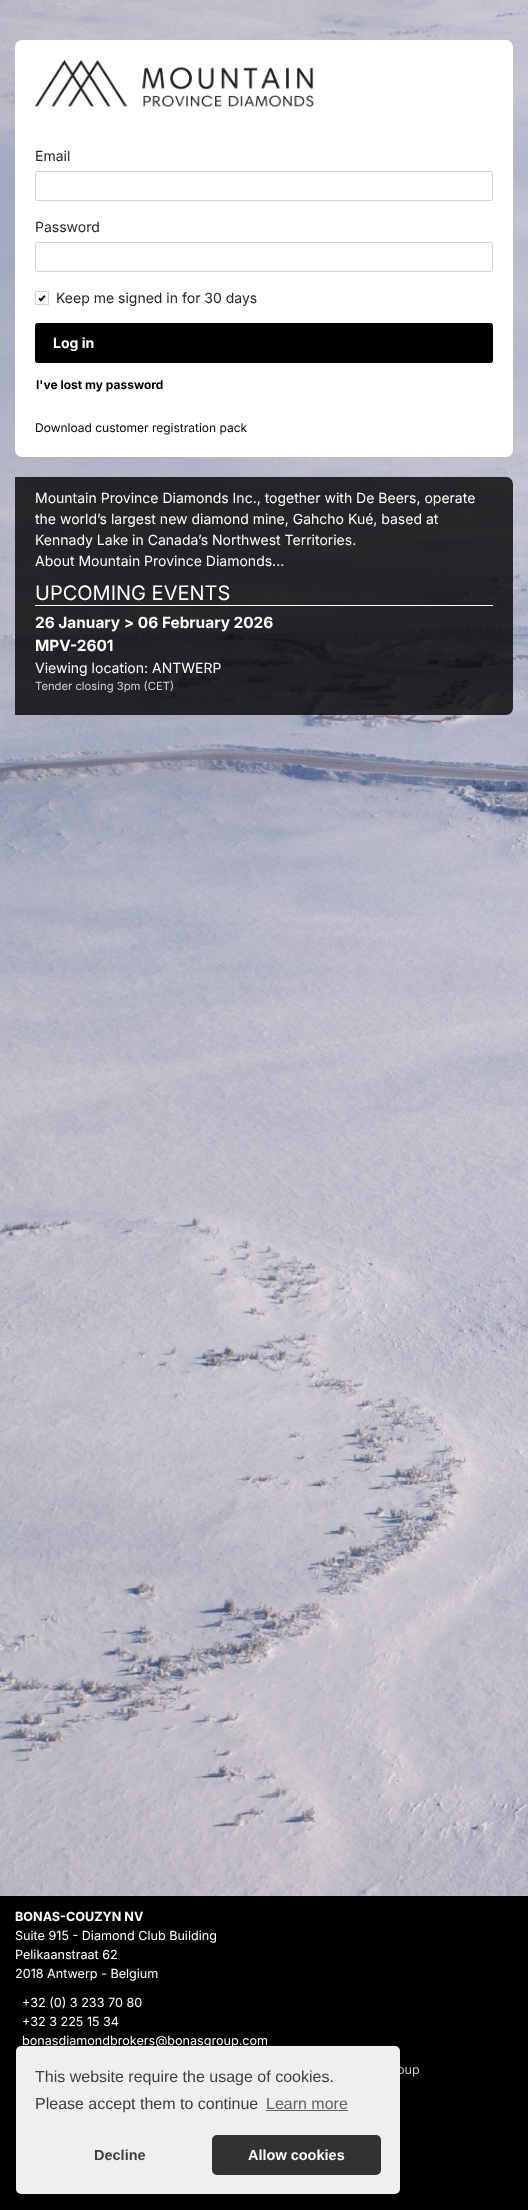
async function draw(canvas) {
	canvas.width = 528;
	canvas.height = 2210;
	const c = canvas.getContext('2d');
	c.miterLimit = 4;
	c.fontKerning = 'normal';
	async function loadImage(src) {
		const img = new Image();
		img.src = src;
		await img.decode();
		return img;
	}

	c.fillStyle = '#fff';
	c.fillRect(0, 0, 528, 2210);
	c.drawImage(await loadImage('img1.png'), 0, 0, 528, 1896);
	c.beginPath();
	c.roundRect(15, 40, 498, 417, 7);
	c.fill();
	c.drawImage(await loadImage('img2.png'), 35, 60, 279, 48);
	c.font = '14px Inter';
	c.fillStyle = '#212529';
	c.fillText('Email', 35, 161);
	c.beginPath();
	c.roundRect(35.5, 171.5, 457, 29, 2);
	c.strokeStyle = '#ced4da';
	c.stroke();
	c.fillText('Password', 35, 232);
	c.beginPath();
	c.roundRect(35.5, 242.5, 457, 29, 2);
	c.stroke();
	c.strokeRect(35.5, 291.5, 13, 13);
	c.fillText('Keep me signed in for 30 days', 56, 303);
	c.fillStyle = '#000';
	c.beginPath();
	c.moveTo(44.5, 295);
	c.lineTo(45.5, 296.5);
	c.lineTo(41, 301.5);
	c.lineTo(39.5, 300);
	c.closePath();
	c.fill();
	c.beginPath();
	c.moveTo(39.5, 297.5);
	c.lineTo(42, 300);
	c.lineTo(41, 301.5);
	c.lineTo(38.5, 299);
	c.closePath();
	c.fill();
	c.beginPath();
	c.roundRect(35.5, 323.5, 457, 39, 2);
	c.fill();
	c.strokeStyle = '#000';
	c.stroke();
	c.font = 'bold 14px Inter';
	c.fillStyle = '#fff';
	c.fillText('Log in', 53, 348);
	c.font = 'bold 12px Inter';
	c.fillStyle = '#000';
	c.fillText('I\'ve lost my password', 36, 389);
	c.font = '12px Inter';
	c.fillText('Download customer registration pack', 35, 432);
	c.fillStyle = '#000000cc';
	c.beginPath();
	c.roundRect(15, 477, 498, 238, [0, 7, 7, 0]);
	c.fill();
	c.font = '14px Inter';
	c.fillStyle = '#fff';
	for (const [text, x, y] of [
		['Mountain Province Diamonds Inc., together with De Beers, operate', 35, 503],
		['the world’s largest new diamond mine, Gahcho Kué, based at', 35, 524],
		['Kennady Lake in Canada’s Northwest Territories.', 35, 545],
		['About Mountain Province Diamonds...', 35, 566],
	]) {
		c.fillText(text, x, y);
	}
	c.fillRect(35, 605, 458, 1);
	c.font = '20px Inter';
	c.fillText('UPCOMING EVENTS', 35, 600);
	c.font = 'bold 15.4px Inter';
	c.fillText('26 January > 06 February 2026', 35, 628);
	c.fillText('MPV-2601', 35, 651);
	c.font = '14px Inter';
	c.fillText('Viewing location: ANTWERP', 35, 673);
	c.font = '11.25px Inter';
	c.fillStyle = '#d3d3d4';
	c.fillText('Tender closing 3pm (CET)', 35, 690);
	c.fillStyle = '#000';
	c.fillRect(0, 1896, 528, 314);
	c.font = 'bold 12.6px Inter';
	c.fillStyle = '#fff';
	c.fillText('BONAS-COUZYN NV', 15, 1921);
	c.font = '12.6px Inter';
	for (const [text, x, y] of [
		['Suite 915 - Diamond Club Building', 15, 1940],
		['Pelikaanstraat 62', 15, 1959],
		['2018 Antwerp - Belgium', 15, 1978],
		['+32 (0) 3 233 70 80', 22, 2007],
		['+32 3 225 15 34', 22, 2026],
		['bonasdiamondbrokers@bonasgroup.com', 22, 2045],
	]) {
		c.fillText(text, x, y);
	}
	c.fillStyle = '#ccc';
	c.fillText('oup', 397, 2074);
	c.fillStyle = '#0000003b';
	c.filter = 'blur(3px)';
	c.beginPath();
	c.roundRect(16, 2049, 384, 148, 5);
	c.fill();
	c.filter = 'none';
	c.fillStyle = '#00000029';
	c.filter = 'blur(3px)';
	c.beginPath();
	c.roundRect(16, 2049, 384, 148, 5);
	c.fill();
	c.filter = 'none';
	c.fillStyle = '#efefef';
	c.beginPath();
	c.roundRect(16, 2046, 384, 148, 5);
	c.fill();
	c.font = '16px Liberation Sans';
	c.fillStyle = '#404040';
	c.fillText('This website require the usage of cookies.', 35, 2082);
	c.fillText('Please accept them to continue', 35, 2109);
	c.fillStyle = '#636363';
	c.fillText('Learn more', 266, 2109);
	c.fillRect(266, 2110, 82, 1);
	c.font = 'bold 14.5px Liberation Sans';
	c.fillStyle = '#404040';
	c.fillText('Decline', 94, 2160);
	c.fillStyle = '#323232';
	c.beginPath();
	c.roundRect(212, 2135, 169, 40, 5);
	c.fill();
	c.fillStyle = '#fff';
	c.fillText('Allow cookies', 248, 2160);
}

draw(document.querySelector('canvas'));
